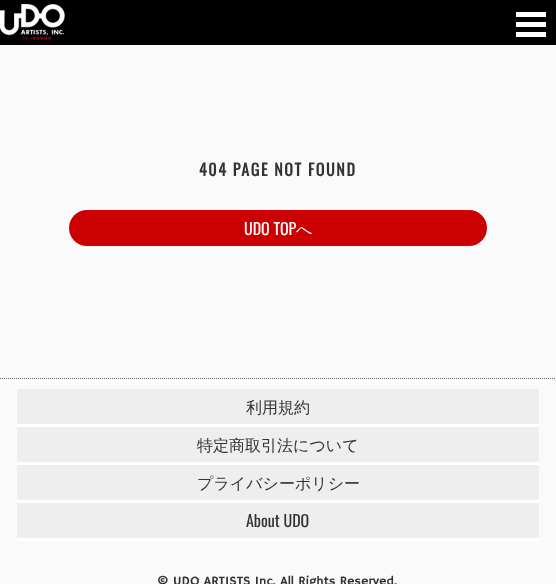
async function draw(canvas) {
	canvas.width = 556;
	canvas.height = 584;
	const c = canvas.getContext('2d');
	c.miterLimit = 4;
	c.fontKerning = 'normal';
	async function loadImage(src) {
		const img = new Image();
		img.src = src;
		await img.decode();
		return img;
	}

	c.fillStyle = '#fafafa';
	c.fillRect(0, 0, 556, 584);
	c.fillStyle = '#000';
	c.fillRect(0, 0, 556, 45);
	c.drawImage(await loadImage('img1.png'), 0, 3, 65, 37);
	for (const [x, y, w, h, color] of [
		[516, 22, 30, 5, '#fff'],
		[516, 12, 30, 5, '#fff'],
		[516, 32, 30, 5, '#fff'],
	]) {
		c.fillStyle = color;
		c.fillRect(x, y, w, h);
	}
	c.letterSpacing = '1.6px';
	c.font = 'bold 16px Oswald';
	c.fillStyle = '#333';
	c.fillText('404 PAGE NOT FOUND', 199, 176);
	c.fillStyle = '#c00';
	c.beginPath();
	c.roundRect(69, 210, 418, 36, 18);
	c.fill();
	c.letterSpacing = '0px';
	c.font = '16px Oswald';
	c.fillStyle = '#fff';
	c.fillText('UDO TOP', 244, 235);
	c.font = '500 16px WenQuanYi Zen Hei';
	c.fillText('へ', 296, 235);
	c.beginPath();
	c.moveTo(0, 378.5);
	c.lineTo(556, 378.5);
	c.strokeStyle = '#666';
	c.setLineDash([1, 1]);
	c.stroke();
	c.fillStyle = '#eee';
	c.fillRect(17, 389, 522, 35);
	c.fillStyle = '#fff';
	c.fillRect(17, 424, 522, 3);
	c.fillStyle = '#333';
	c.fillText('利用規約', 246, 413);
	c.fillStyle = '#eee';
	c.fillRect(17, 427, 522, 35);
	c.fillStyle = '#fff';
	c.fillRect(17, 462, 522, 3);
	c.fillStyle = '#333';
	c.fillText('特定商取引法について', 197, 451);
	c.fillStyle = '#eee';
	c.fillRect(17, 465, 522, 35);
	c.fillStyle = '#fff';
	c.fillRect(17, 500, 522, 3);
	c.fillStyle = '#333';
	c.fillText('プライバシーポリシー', 197, 489);
	c.fillStyle = '#eee';
	c.fillRect(17, 503, 522, 35);
	c.fillStyle = '#fff';
	c.fillRect(17, 538, 522, 3);
	c.font = '16px Oswald';
	c.fillStyle = '#333';
	c.fillText('About UDO', 246, 527);
	c.font = '12.75px Hammersmith One';
	c.fillText('© UDO ARTISTS Inc. All Rights Reserved.', 157, 585);
}

draw(document.querySelector('canvas'));
